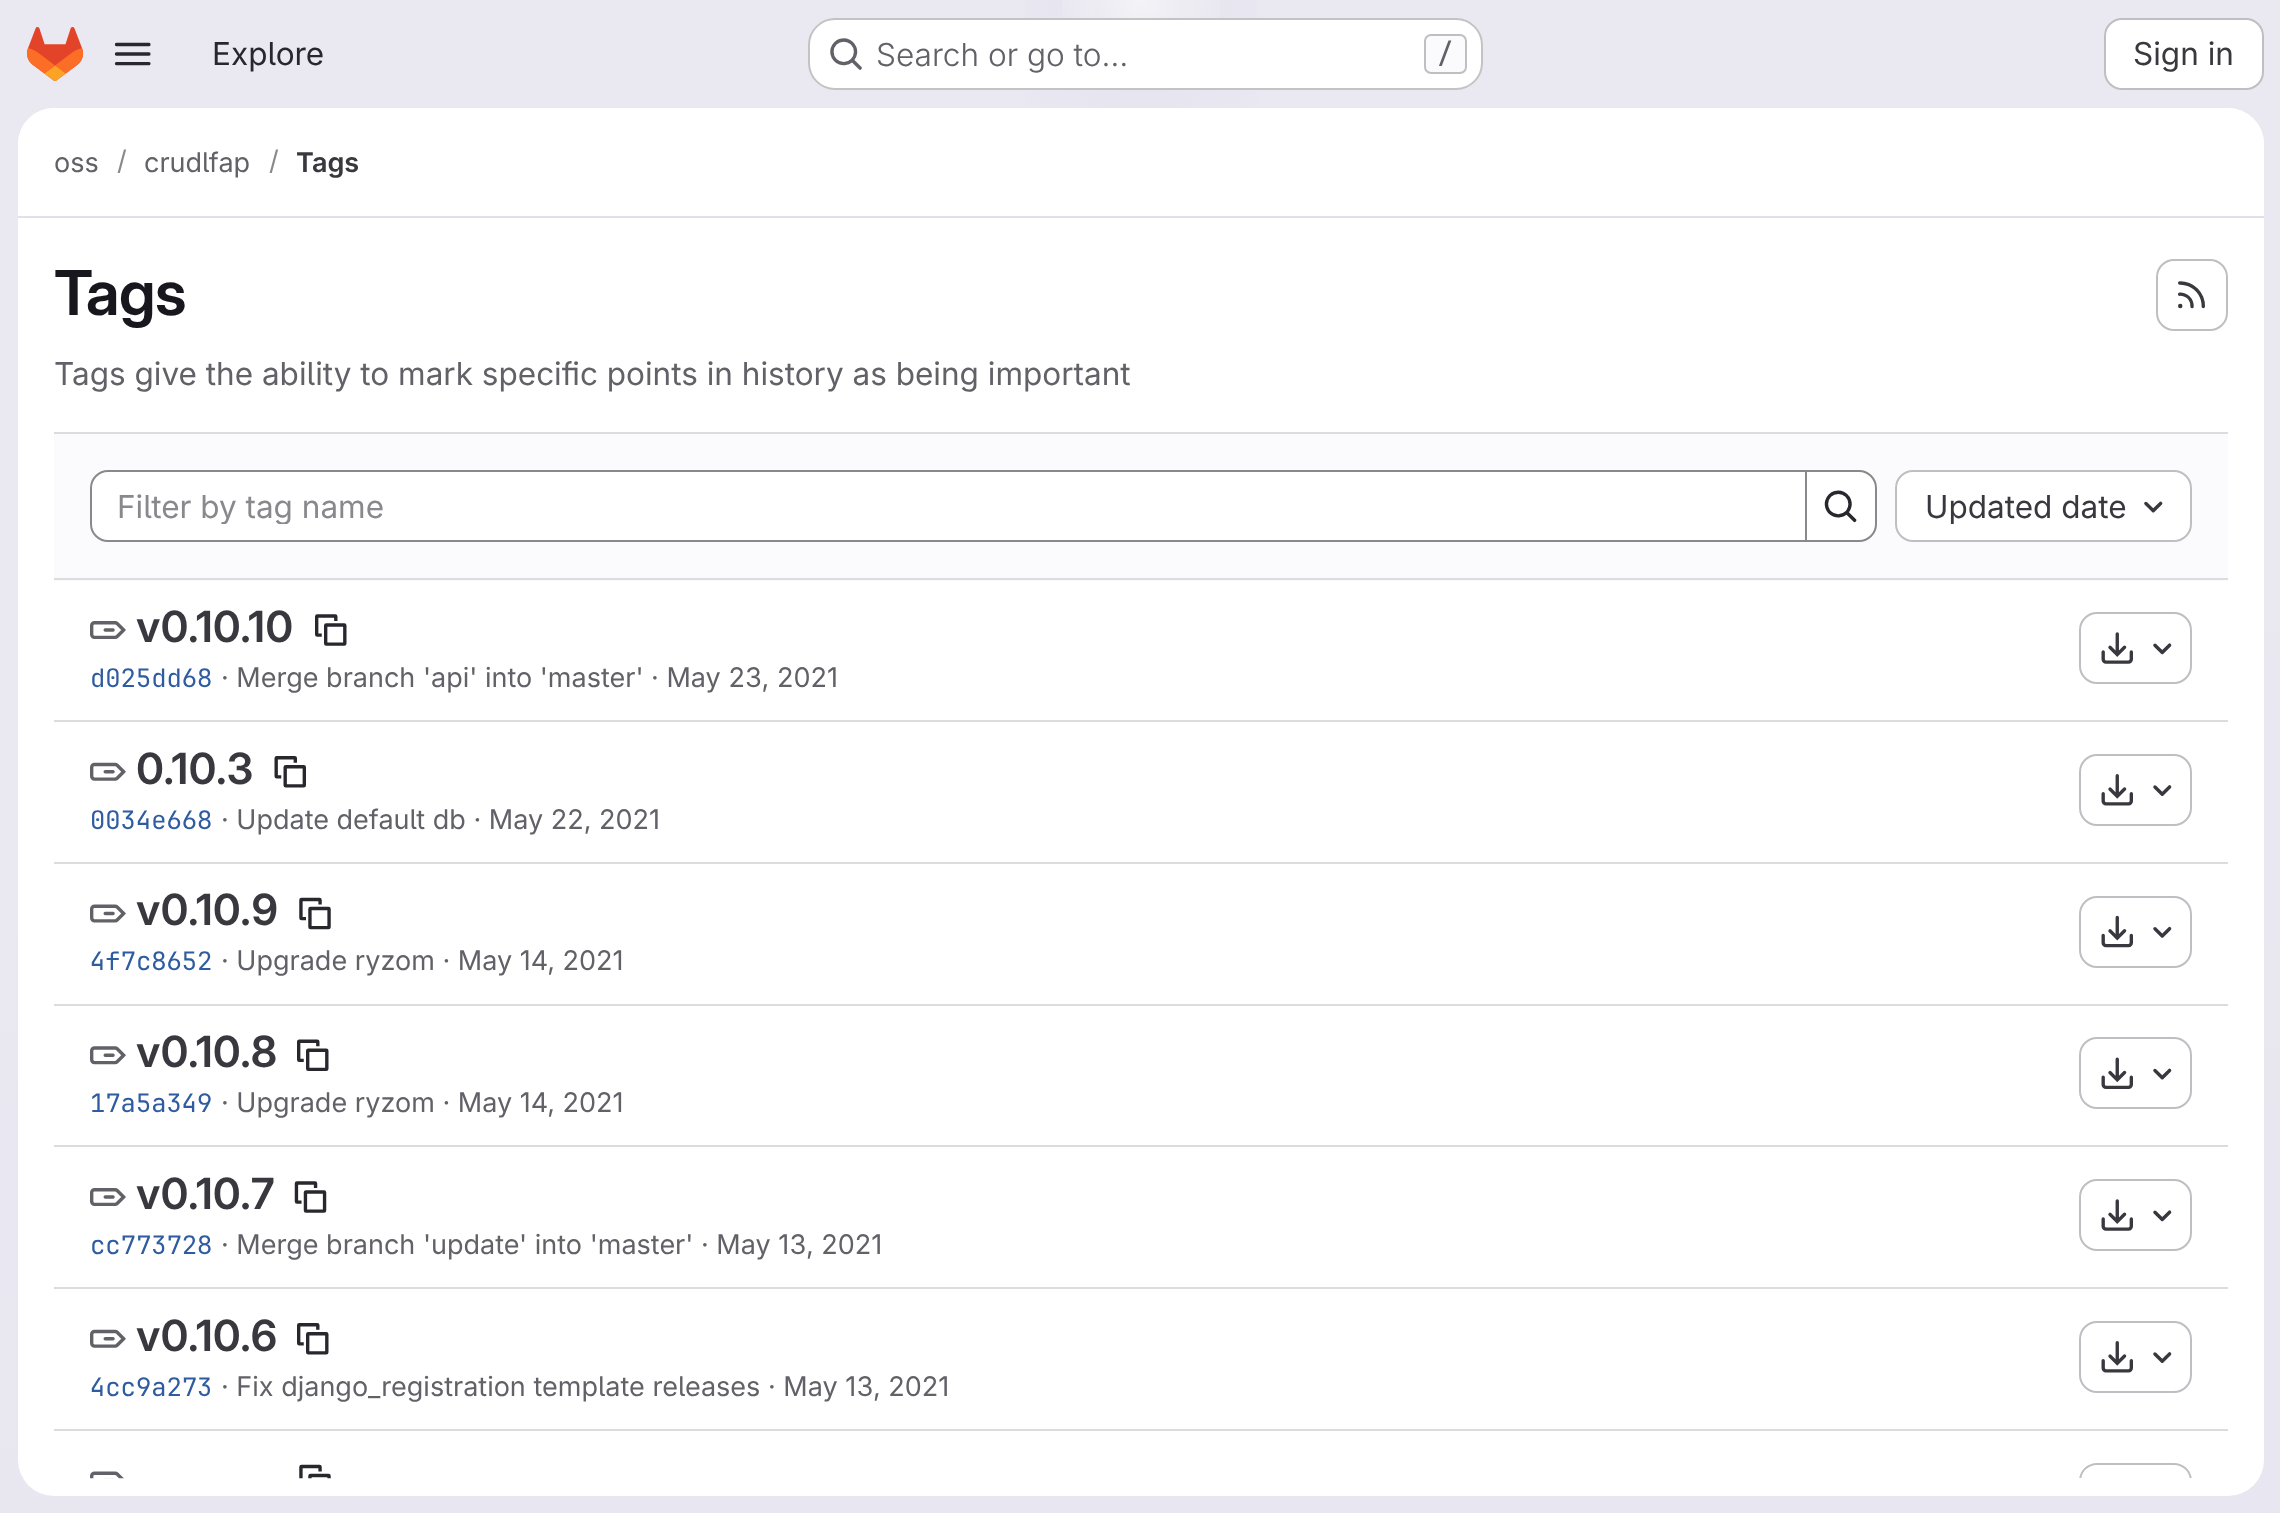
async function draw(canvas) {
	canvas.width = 2280;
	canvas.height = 1513;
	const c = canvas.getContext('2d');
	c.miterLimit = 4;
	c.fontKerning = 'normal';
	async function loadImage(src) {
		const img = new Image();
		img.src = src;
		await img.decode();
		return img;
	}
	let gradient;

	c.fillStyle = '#fff';
	c.fillRect(0, 0, 2280, 1513);
	gradient = c.createLinearGradient(1305, 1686, 977, -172);
	gradient.addColorStop(0, '#e8e6f0');
	gradient.addColorStop(0.7, '#eae9f2');
	c.fillStyle = gradient;
	c.fillRect(0, 0, 2280, 1513);
	gradient = c.createRadialGradient(1141, 0, 0, 1141, 0, 1141);
	gradient.addColorStop(0, '#e4e2ed');
	gradient.addColorStop(0.14, '#e4e2ed00');
	c.fillStyle = gradient;
	c.beginPath();
	c.rect(1025, 0, 232, 108);
	c.save();
	c.clip();
	c.scale(1, 1514 / 1141);
	c.fillRect(0, 0, 2280, 1141);
	c.restore();
	gradient = c.createRadialGradient(1141, 0, 0, 1141, 0, 1141);
	gradient.addColorStop(0, '#e4e2ec');
	gradient.addColorStop(0.1, '#e4e2ec00');
	c.fillStyle = gradient;
	c.beginPath();
	c.rect(1094, 0, 94, 62);
	c.save();
	c.clip();
	c.scale(1, 1514 / 1141);
	c.fillRect(0, 0, 2280, 1141);
	c.restore();
	gradient = c.createRadialGradient(1141, 0, 0, 1141, 0, 1896);
	gradient.addColorStop(0, '#ffffff99');
	gradient.addColorStop(0.05, '#ffffff00');
	c.fillStyle = gradient;
	c.fillRect(1062, 0, 158, 80);
	c.drawImage(await loadImage('img1.png'), 27, 27, 56, 54);
	c.drawImage(await loadImage('img2.png'), 114, 42, 37, 24);
	c.font = '31.5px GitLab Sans';
	c.fillStyle = '#28272d';
	c.fillText('Explore', 212, 65);
	c.fillStyle = '#fff';
	c.beginPath();
	c.roundRect(808, 18, 675, 72, 27);
	c.fill();
	c.beginPath();
	c.roundRect(809, 19, 673, 70, 26);
	c.strokeStyle = '#0505063d';
	c.lineWidth = 2;
	c.stroke();
	c.drawImage(await loadImage('img3.png'), 830, 38, 32, 32);
	c.font = '300 31.5px GitLab Sans';
	c.fillStyle = '#626168';
	c.fillText('Search or go to…', 876, 66);
	c.fillStyle = '#fbfafd';
	c.beginPath();
	c.roundRect(1425, 35, 41, 38, 6);
	c.fill();
	c.strokeStyle = '#bfbfc3';
	c.stroke();
	c.font = '500 27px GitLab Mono';
	c.fillStyle = '#626168';
	c.fillText('/', 1437, 63);
	c.fillStyle = '#fff';
	c.beginPath();
	c.roundRect(2105, 19, 158, 70, 17);
	c.fill();
	c.stroke();
	c.font = '31.5px GitLab Sans';
	c.fillStyle = '#3a383f';
	c.fillText('Sign in', 2133, 65);
	c.fillStyle = '#fff';
	c.beginPath();
	c.roundRect(18, 108, 2246, 1388, 36);
	c.fill();
	c.beginPath();
	c.roundRect(18, 108, 2246, 110, [36, 36, 0, 0]);
	c.fill();
	c.fillStyle = '#e1dfec';
	c.fillRect(18, 216, 2246, 2);
	c.font = '27px GitLab Sans';
	c.fillStyle = '#626168';
	c.fillText('oss', 54, 172);
	c.fillStyle = '#89888d';
	c.fillText('/', 117, 170);
	c.fillStyle = '#626168';
	c.fillText('crudlfap', 144, 172);
	c.fillStyle = '#89888d';
	c.fillText('/', 269, 170);
	c.font = '600 27px "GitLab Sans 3"';
	c.fillStyle = '#3a383f';
	c.fillText('Tags', 296, 172);
	c.letterSpacing = '-0.5px';
	c.font = '600 62px GitLab Sans';
	c.fillStyle = '#18171d';
	c.fillText('Tags', 54, 315);
	c.beginPath();
	c.roundRect(2157, 260, 70, 70, 17);
	c.stroke();
	c.drawImage(await loadImage('img4.png'), 2178, 281, 27, 28);
	c.letterSpacing = '0px';
	c.font = '31.5px GitLab Sans';
	c.fillStyle = '#626168';
	c.fillText('Tags give the ability to mark specific points in history as being important', 54, 385);
	for (const [x, y, w, h, color] of [
		[54, 434, 2174, 147, '#fbfafd'],
		[54, 432, 2174, 2, '#dcdcde'],
		[54, 578, 2174, 2, '#dcdcde'],
	]) {
		c.fillStyle = color;
		c.fillRect(x, y, w, h);
	}
	c.fillStyle = '#fff';
	c.beginPath();
	c.roundRect(91, 471, 1715, 70, [17, 0, 0, 17]);
	c.fill();
	c.strokeStyle = '#89888d';
	c.stroke();
	c.save();
	c.beginPath();
	c.rect(117, 486, 1618, 38);
	c.clip();
	c.fillStyle = '#89888d';
	c.fillText('Filter by tag name', 117, 518);
	c.restore();
	c.beginPath();
	c.roundRect(1806, 471, 70, 70, [0, 17, 17, 0]);
	c.fill();
	c.stroke();
	c.drawImage(await loadImage('img5.png'), 1824, 490, 33, 33);
	c.beginPath();
	c.roundRect(1896, 471, 295, 70, 17);
	c.fill();
	c.strokeStyle = '#bfbfc3';
	c.stroke();
	c.save();
	c.beginPath();
	c.rect(1924, 488, 202, 36);
	c.clip();
	c.fillStyle = '#3a383f';
	c.fillText('Updated date', 1925, 518);
	c.restore();
	c.drawImage(await loadImage('img6.png'), 2144, 501, 19, 12);
	c.fillStyle = '#dcdcde';
	c.fillRect(54, 720, 2174, 2);
	c.drawImage(await loadImage('img7.png'), 90, 621, 36, 18);
	c.font = '600 43px "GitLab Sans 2"';
	c.fillStyle = '#3a383f';
	c.fillText('v0.10.10', 136, 642);
	c.drawImage(await loadImage('img8.png'), 315, 614, 32, 32);
	c.font = '25.5px GitLab Mono';
	c.fillStyle = '#2f5ca0';
	c.fillText('d025dd68', 90, 687);
	c.font = '27px GitLab Sans';
	c.fillStyle = '#626168';
	c.fillText('· Merge branch \'api\' into \'master\' · May 23, 2021', 221, 687);
	c.beginPath();
	c.roundRect(2080, 613, 111, 70, 17);
	c.stroke();
	c.drawImage(await loadImage('img9.png'), 2101, 632, 32, 32);
	c.drawImage(await loadImage('img10.png'), 2153, 643, 19, 12);
	c.fillStyle = '#dcdcde';
	c.fillRect(54, 862, 2174, 2);
	c.drawImage(await loadImage('img11.png'), 90, 762, 36, 19);
	c.font = '600 43px "GitLab Sans 2"';
	c.fillStyle = '#3a383f';
	c.fillText('0.10.3', 136, 784);
	c.drawImage(await loadImage('img12.png'), 274, 756, 32, 32);
	c.font = '25.5px GitLab Mono';
	c.fillStyle = '#2f5ca0';
	c.fillText('0034e668', 90, 829);
	c.font = '27px GitLab Sans';
	c.fillStyle = '#626168';
	c.fillText('· Update default db · May 22, 2021', 221, 829);
	c.beginPath();
	c.roundRect(2080, 755, 111, 70, 17);
	c.stroke();
	c.drawImage(await loadImage('img13.png'), 2101, 774, 32, 32);
	c.drawImage(await loadImage('img14.png'), 2153, 785, 19, 11);
	c.fillStyle = '#dcdcde';
	c.fillRect(54, 1004, 2174, 2);
	c.drawImage(await loadImage('img15.png'), 90, 904, 36, 19);
	c.font = '600 43px "GitLab Sans 2"';
	c.fillStyle = '#3a383f';
	c.fillText('v0.10.9', 136, 925);
	c.drawImage(await loadImage('img16.png'), 299, 897, 32, 33);
	c.font = '25.5px GitLab Mono';
	c.fillStyle = '#2f5ca0';
	c.fillText('4f7c8652', 90, 970);
	c.font = '27px GitLab Sans';
	c.fillStyle = '#626168';
	c.fillText('· Upgrade ryzom · May 14, 2021', 221, 970);
	c.beginPath();
	c.roundRect(2080, 897, 111, 70, 17);
	c.stroke();
	c.drawImage(await loadImage('img17.png'), 2101, 915, 32, 33);
	c.drawImage(await loadImage('img18.png'), 2153, 926, 19, 12);
	c.fillStyle = '#dcdcde';
	c.fillRect(54, 1145, 2174, 2);
	c.drawImage(await loadImage('img19.png'), 90, 1046, 36, 19);
	c.font = '600 43px "GitLab Sans 2"';
	c.fillStyle = '#3a383f';
	c.fillText('v0.10.8', 136, 1067);
	c.drawImage(await loadImage('img20.png'), 297, 1039, 32, 32);
	c.font = '25.5px GitLab Mono';
	c.fillStyle = '#2f5ca0';
	c.fillText('17a5a349', 90, 1112);
	c.font = '27px GitLab Sans';
	c.fillStyle = '#626168';
	c.fillText('· Upgrade ryzom · May 14, 2021', 221, 1112);
	c.beginPath();
	c.roundRect(2080, 1038, 111, 70, 17);
	c.stroke();
	c.drawImage(await loadImage('img21.png'), 2101, 1057, 32, 32);
	c.drawImage(await loadImage('img22.png'), 2153, 1068, 19, 12);
	c.fillStyle = '#dcdcde';
	c.fillRect(54, 1287, 2174, 2);
	c.drawImage(await loadImage('img7.png'), 90, 1188, 36, 18);
	c.font = '600 43px "GitLab Sans 2"';
	c.fillStyle = '#3a383f';
	c.fillText('v0.10.7', 136, 1209);
	c.drawImage(await loadImage('img23.png'), 294, 1181, 33, 32);
	c.font = '25.5px GitLab Mono';
	c.fillStyle = '#2f5ca0';
	c.fillText('cc773728', 90, 1254);
	c.font = '27px GitLab Sans';
	c.fillStyle = '#626168';
	c.fillText('· Merge branch \'update\' into \'master\' · May 13, 2021', 221, 1254);
	c.beginPath();
	c.roundRect(2080, 1180, 111, 70, 17);
	c.stroke();
	c.drawImage(await loadImage('img9.png'), 2101, 1199, 32, 32);
	c.drawImage(await loadImage('img10.png'), 2153, 1210, 19, 12);
	c.fillStyle = '#dcdcde';
	c.fillRect(54, 1429, 2174, 2);
	c.drawImage(await loadImage('img24.png'), 90, 1329, 36, 19);
	c.font = '600 43px "GitLab Sans 2"';
	c.fillStyle = '#3a383f';
	c.fillText('v0.10.6', 136, 1351);
	c.drawImage(await loadImage('img25.png'), 297, 1323, 32, 32);
	c.font = '25.5px GitLab Mono';
	c.fillStyle = '#2f5ca0';
	c.fillText('4cc9a273', 90, 1396);
	c.font = '27px GitLab Sans';
	c.fillStyle = '#626168';
	c.fillText('· Fix django_registration template releases · May 13, 2021', 221, 1396);
	c.beginPath();
	c.roundRect(2080, 1322, 111, 70, 17);
	c.stroke();
	c.drawImage(await loadImage('img13.png'), 2101, 1341, 32, 32);
	c.drawImage(await loadImage('img14.png'), 2153, 1352, 19, 11);
	c.drawImage(await loadImage('img26.png'), 90, 1471, 35, 8);
	c.drawImage(await loadImage('img27.png'), 299, 1464, 32, 15);
	c.save();
	c.beginPath();
	c.rect(18, 218, 2246, 1260);
	c.clip();
	c.fillStyle = '#bfbfc3';
	c.beginPath();
	c.moveTo(2097, 1463);
	c.bezierCurveTo(2087, 1463, 2079, 1471, 2079, 1481);
	c.lineTo(2079, 1496);
	c.lineTo(2081, 1496);
	c.lineTo(2081, 1481);
	c.bezierCurveTo(2081, 1472, 2088, 1465, 2097, 1465);
	c.lineTo(2174, 1465);
	c.bezierCurveTo(2183, 1465, 2190, 1472, 2190, 1481);
	c.lineTo(2190, 1496);
	c.lineTo(2192, 1496);
	c.lineTo(2192, 1481);
	c.bezierCurveTo(2192, 1471, 2184, 1463, 2174, 1463);
	c.closePath();
	c.fill();
	c.restore();
}

draw(document.querySelector('canvas'));
